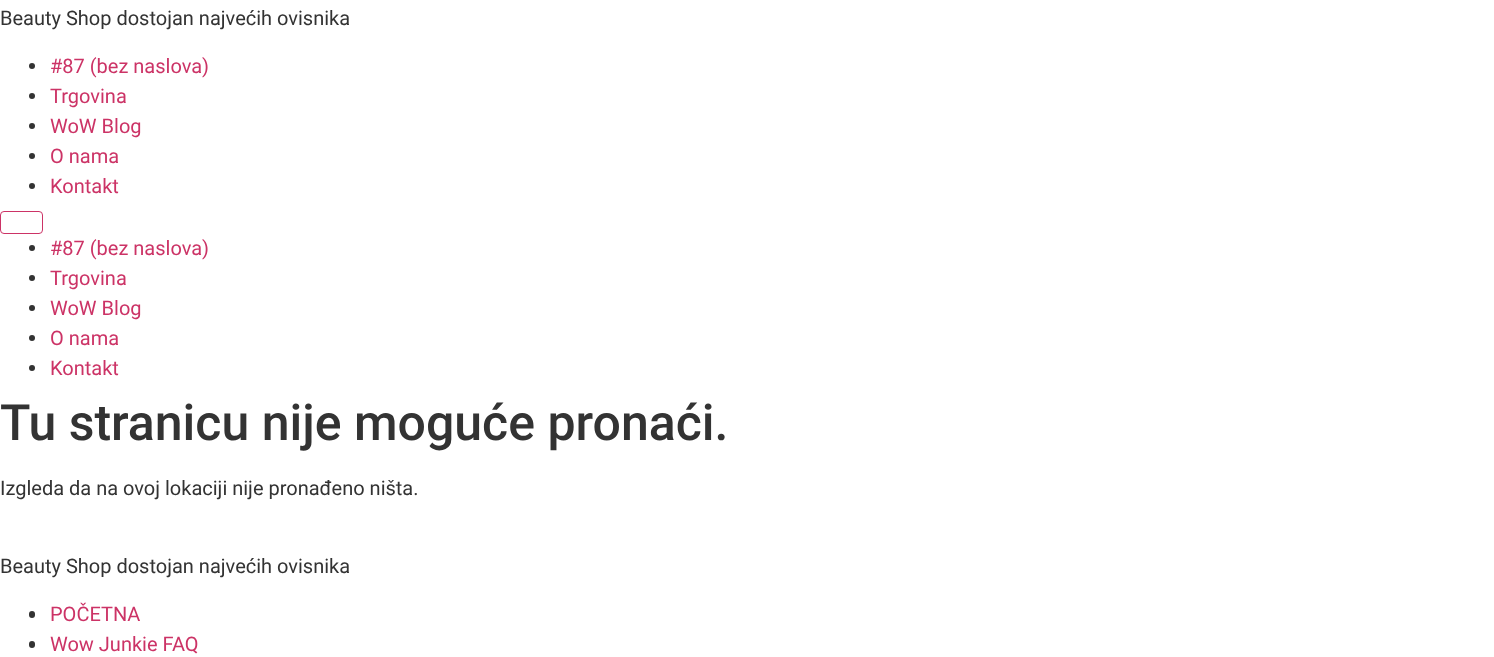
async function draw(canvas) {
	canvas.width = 1494;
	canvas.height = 657;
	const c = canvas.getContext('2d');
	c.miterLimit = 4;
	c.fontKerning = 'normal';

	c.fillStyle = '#fff';
	c.fillRect(0, 0, 1494, 657);
	c.font = '20px Roboto';
	c.fillStyle = '#333';
	c.fillText('Beauty Shop dostojan najvećih ovisnika', 0, 25);
	c.beginPath();
	c.arc(32, 66, 3, 0, 2 * Math.PI);
	c.fill();
	c.fillStyle = '#c36';
	c.fillText('#87 (bez naslova)', 50, 73);
	c.fillStyle = '#333';
	c.beginPath();
	c.arc(32, 96, 3, 0, 2 * Math.PI);
	c.fill();
	c.fillStyle = '#c36';
	c.fillText('Trgovina', 50, 103);
	c.fillStyle = '#333';
	c.beginPath();
	c.arc(32, 126, 3, 0, 2 * Math.PI);
	c.fill();
	c.fillStyle = '#c36';
	c.fillText('WoW Blog', 50, 133);
	c.fillStyle = '#333';
	c.beginPath();
	c.arc(32, 156, 3, 0, 2 * Math.PI);
	c.fill();
	c.fillStyle = '#c36';
	c.fillText('O nama', 50, 163);
	c.fillStyle = '#333';
	c.beginPath();
	c.arc(32, 186, 3, 0, 2 * Math.PI);
	c.fill();
	c.fillStyle = '#c36';
	c.fillText('Kontakt', 50, 193);
	c.beginPath();
	c.roundRect(0.5, 211.5, 42, 22, 3.5);
	c.strokeStyle = '#c36';
	c.stroke();
	c.fillStyle = '#333';
	c.beginPath();
	c.arc(32, 248, 3, 0, 2 * Math.PI);
	c.fill();
	c.fillStyle = '#c36';
	c.fillText('#87 (bez naslova)', 50, 255);
	c.fillStyle = '#333';
	c.beginPath();
	c.arc(32, 278, 3, 0, 2 * Math.PI);
	c.fill();
	c.fillStyle = '#c36';
	c.fillText('Trgovina', 50, 285);
	c.fillStyle = '#333';
	c.beginPath();
	c.arc(32, 308, 3, 0, 2 * Math.PI);
	c.fill();
	c.fillStyle = '#c36';
	c.fillText('WoW Blog', 50, 315);
	c.fillStyle = '#333';
	c.beginPath();
	c.arc(32, 338, 3, 0, 2 * Math.PI);
	c.fill();
	c.fillStyle = '#c36';
	c.fillText('O nama', 50, 345);
	c.fillStyle = '#333';
	c.beginPath();
	c.arc(32, 368, 3, 0, 2 * Math.PI);
	c.fill();
	c.fillStyle = '#c36';
	c.fillText('Kontakt', 50, 375);
	c.font = '500 50px Roboto';
	c.fillStyle = '#333';
	c.fillText('Tu stranicu nije moguće pronaći.', 0, 440);
	c.font = '20px Roboto';
	c.fillText('Izgleda da na ovoj lokaciji nije pronađeno ništa.', 0, 495);
	c.fillText('Beauty Shop dostojan najvećih ovisnika', 0, 573);
	c.beginPath();
	c.roundRect(29, 611, 6, 7, 3);
	c.fill();
	c.fillStyle = '#c36';
	c.fillText('POČETNA', 50, 621);
	c.fillStyle = '#333';
	c.beginPath();
	c.roundRect(29, 641, 6, 7, 3);
	c.fill();
	c.fillStyle = '#c36';
	c.fillText('Wow Junkie FAQ', 50, 651);
}

draw(document.querySelector('canvas'));
